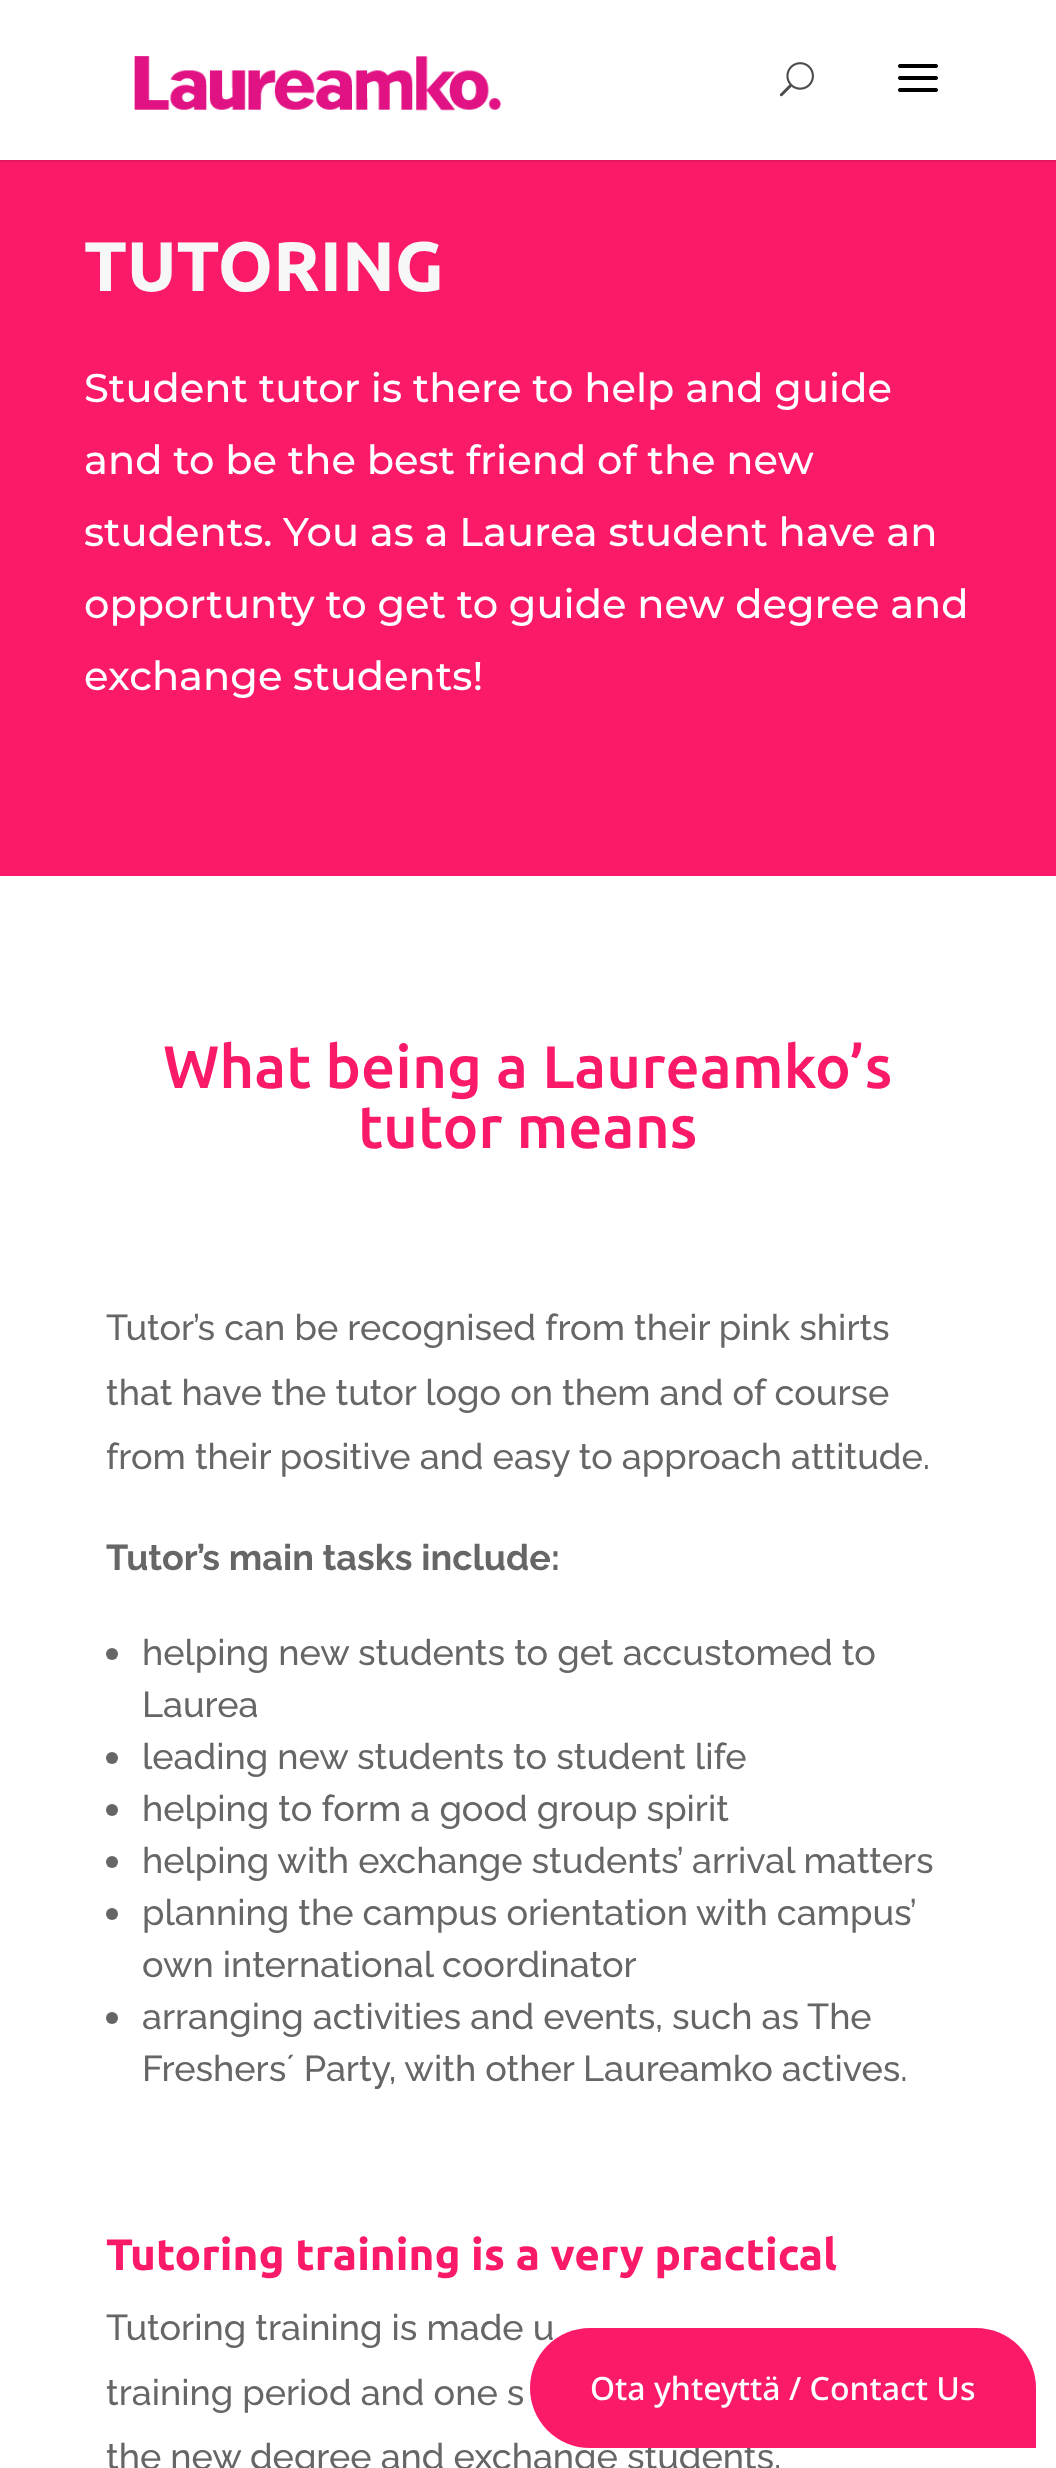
async function draw(canvas) {
	canvas.width = 1056;
	canvas.height = 2468;
	const c = canvas.getContext('2d');
	c.miterLimit = 4;
	c.fontKerning = 'normal';
	async function loadImage(src) {
		const img = new Image();
		img.src = src;
		await img.decode();
		return img;
	}

	c.fillStyle = '#fff';
	c.fillRect(0, 0, 1056, 2468);
	c.fillStyle = '#e2175f';
	c.fillRect(0, 160, 1056, 2);
	c.drawImage(await loadImage('img1.png'), 134, 56, 367, 55);
	c.drawImage(await loadImage('img2.png'), 779, 62, 35, 35);
	c.drawImage(await loadImage('img3.png'), 898, 64, 40, 28);
	c.fillStyle = '#fb1969';
	c.fillRect(0, 162, 1056, 714);
	c.font = 'bold 70px Ubuntu';
	c.fillStyle = '#f7f7f7';
	c.fillText('TUTORING', 84, 291);
	c.font = '500 40px Montserrat';
	c.fillStyle = '#fff';
	for (const [text, x, y] of [
		['Student tutor is there to help and guide', 84, 402],
		['and to be the best friend of the new', 84, 474],
		['students. You as a Laurea student have an', 84, 546],
		['opportunty to get to guide new degree and', 84, 618],
		['exchange students!', 84, 690],
	]) {
		c.fillText(text, x, y);
	}
	c.font = '500 60px Ubuntu';
	c.fillStyle = '#fb1969';
	c.fillText('What being a Laureamko’s', 163, 1088);
	c.fillText('tutor means', 358, 1148);
	c.font = '500 36px Raleway';
	c.fillStyle = '#666';
	for (const [text, x, y] of [
		['Tutor’s can be recognised from their pink shirts', 106, 1340],
		['that have the tutor logo on them and of course', 106, 1405],
		['from their positive and easy to approach attitude.', 106, 1469],
	]) {
		c.fillText(text, x, y);
	}
	c.font = 'bold 36px Raleway';
	c.fillText('Tutor’s main tasks include:', 106, 1570);
	c.beginPath();
	c.arc(112, 1654, 6, 0, 2 * Math.PI);
	c.fill();
	c.font = '500 36px Raleway';
	c.fillText('helping new students to get accustomed to', 142, 1665);
	c.fillText('Laurea', 142, 1717);
	c.beginPath();
	c.arc(112, 1758, 6, 0, 2 * Math.PI);
	c.fill();
	c.fillText('leading new students to student life', 142, 1769);
	c.beginPath();
	c.arc(112, 1810, 6, 0, 2 * Math.PI);
	c.fill();
	c.fillText('helping to form a good group spirit', 142, 1821);
	c.beginPath();
	c.arc(112, 1862, 6, 0, 2 * Math.PI);
	c.fill();
	c.fillText('helping with exchange students’ arrival matters', 142, 1873);
	c.beginPath();
	c.arc(112, 1914, 6, 0, 2 * Math.PI);
	c.fill();
	c.fillText('planning the campus orientation with campus’', 142, 1925);
	c.fillText('own international coordinator', 142, 1977);
	c.beginPath();
	c.arc(112, 2018, 6, 0, 2 * Math.PI);
	c.fill();
	c.fillText('arranging activities and events, such as The', 142, 2029);
	c.fillText('Freshers´ Party, with other Laureamko actives.', 142, 2081);
	c.font = 'bold 44px Ubuntu';
	c.fillStyle = '#fb1969';
	c.fillText('Tutoring training is a very practical', 106, 2270);
	c.font = '500 36px Raleway';
	c.fillStyle = '#666';
	for (const [text, x, y] of [
		['Tutoring training is made u', 106, 2340],
		['training period and one s', 106, 2405],
		['the new degree and exchange students.', 106, 2469],
	]) {
		c.fillText(text, x, y);
	}
	c.fillStyle = '#fb1969';
	c.beginPath();
	c.roundRect(530, 2328, 506, 120, [60, 60, 0, 60]);
	c.fill();
	c.font = '500 32px Noto Sans';
	c.fillStyle = '#fff';
	c.fillText('Ota yhteyttä / Contact Us', 590, 2400);
}

draw(document.querySelector('canvas'));
